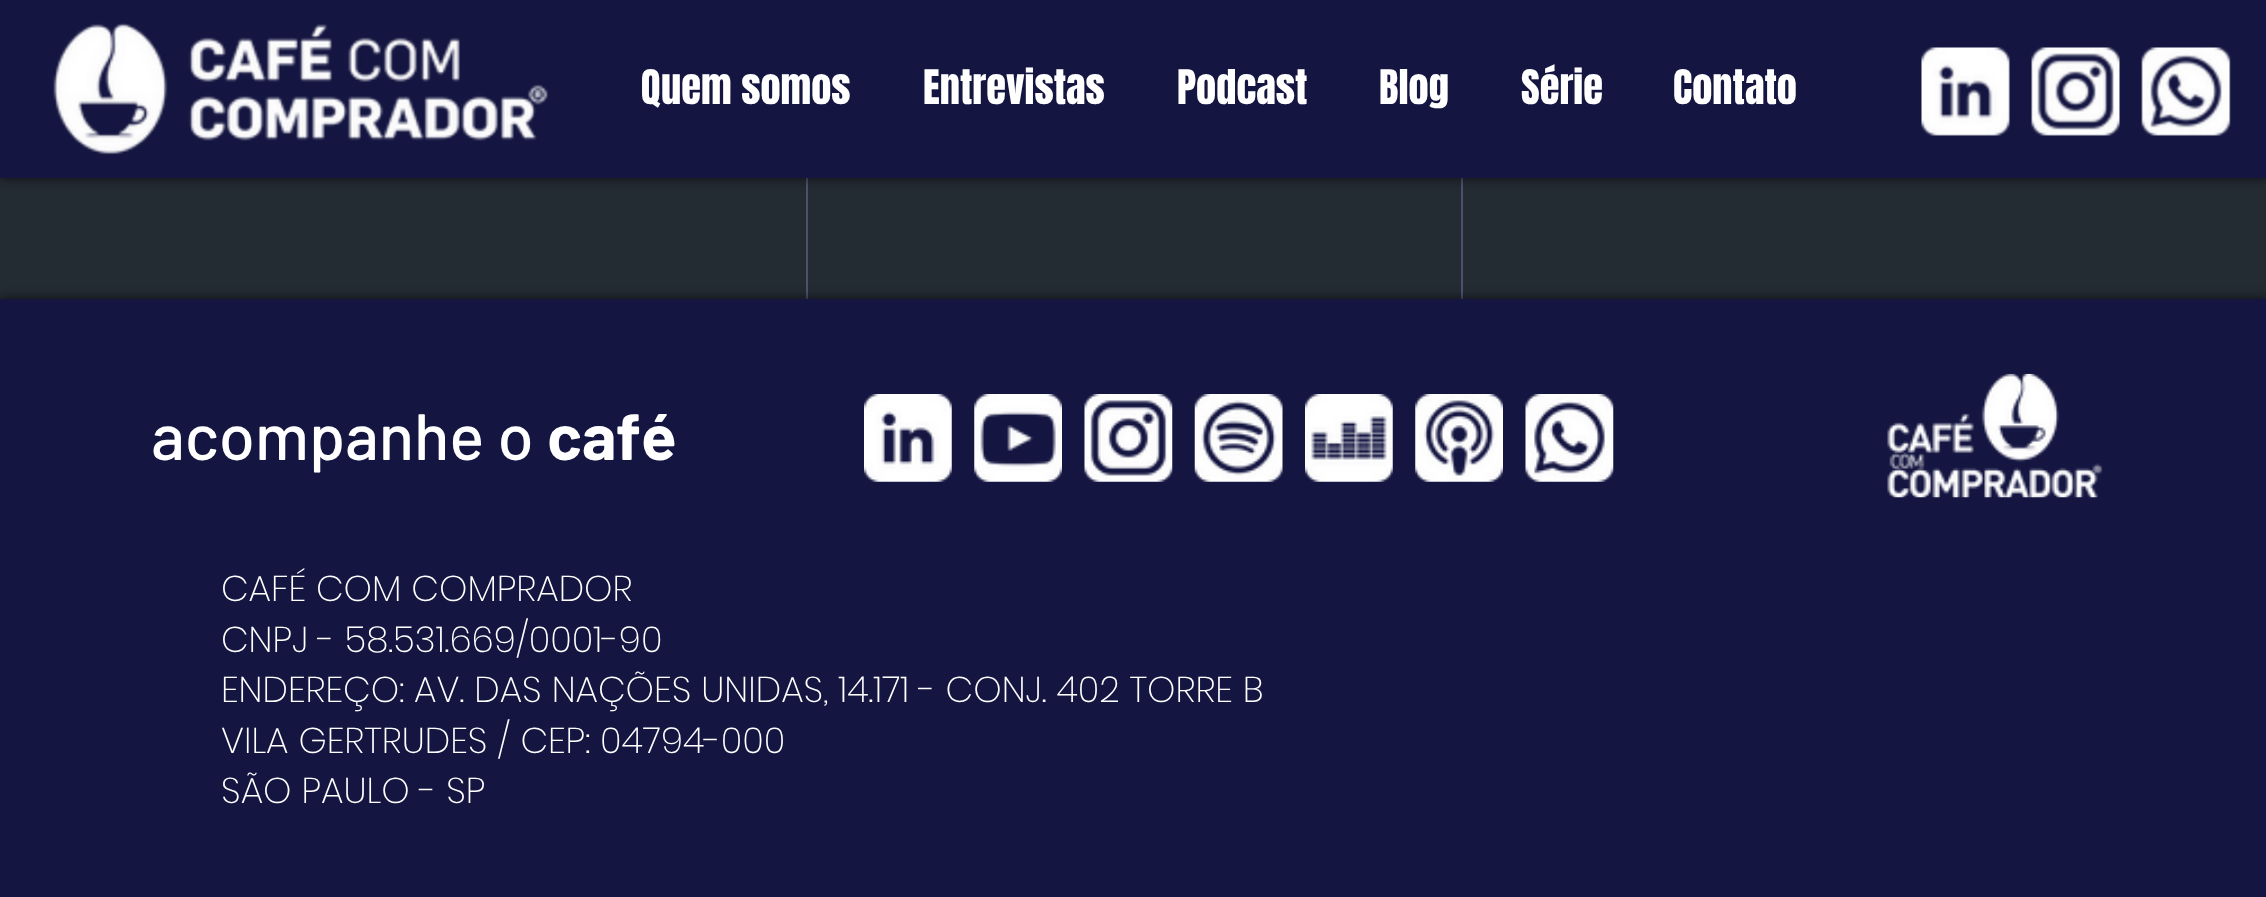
async function draw(canvas) {
	canvas.width = 2266;
	canvas.height = 897;
	const c = canvas.getContext('2d');
	c.miterLimit = 4;
	c.fontKerning = 'normal';
	async function loadImage(src) {
		const img = new Image();
		img.src = src;
		await img.decode();
		return img;
	}

	c.fillStyle = '#232b33';
	c.fillRect(0, 0, 2266, 897);
	c.strokeStyle = '#4f5070';
	c.lineWidth = 2;
	c.strokeRect(807, -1, 655, 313);
	c.fillStyle = '#000000b3';
	c.filter = 'blur(5.5px)';
	c.beginPath();
	c.rect(0, 0, 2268, 178);
	c.fill();
	c.filter = 'none';
	c.fillStyle = '#141540';
	c.fillRect(0, 0, 2266, 178);
	c.drawImage(await loadImage('img1.png'), 53, 23, 495, 132);
	c.font = '40.5px Anton';
	c.fillStyle = '#fff';
	for (const [text, x, y] of [
		['Quem somos', 641, 104],
		['Entrevistas', 923, 104],
		['Podcast', 1177, 104],
		['Blog', 1379, 104],
		['Série', 1521, 104],
		['Contato', 1673, 104],
	]) {
		c.fillText(text, x, y);
	}
	c.drawImage(await loadImage('img2.png'), 1921, 47, 89, 89);
	c.drawImage(await loadImage('img3.png'), 2031, 47, 89, 89);
	c.drawImage(await loadImage('img4.png'), 2141, 47, 90, 89);
	c.fillStyle = '#000000b3';
	c.filter = 'blur(5.5px)';
	c.beginPath();
	c.rect(0, 299, 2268, 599);
	c.fill();
	c.filter = 'none';
	c.fillStyle = '#141540';
	c.fillRect(0, 299, 2266, 598);
	c.font = '500 65.25px Barlow';
	c.fillStyle = '#fff';
	c.fillText('acompanhe o', 151, 460);
	c.font = 'bold 65.25px Barlow';
	c.fillText('café', 547, 460);
	c.drawImage(await loadImage('img5.png'), 864, 394, 88, 88);
	c.drawImage(await loadImage('img6.png'), 974, 394, 88, 88);
	c.drawImage(await loadImage('img7.png'), 1084, 394, 89, 88);
	c.drawImage(await loadImage('img8.png'), 1194, 394, 89, 88);
	c.drawImage(await loadImage('img9.png'), 1305, 394, 88, 88);
	c.drawImage(await loadImage('img10.png'), 1415, 394, 88, 88);
	c.drawImage(await loadImage('img11.png'), 1525, 394, 89, 88);
	c.drawImage(await loadImage('img12.png'), 1887, 373, 216, 125);
	c.font = '200 36px Poppins';
	for (const [text, x, y] of [
		['CAFÉ COM COMPRADOR', 221, 601],
		['CNPJ - 58.531.669/0001-90', 221, 652],
		['ENDEREÇO: AV. DAS NAÇÕES UNIDAS, 14.171 - CONJ. 402 TORRE B', 221, 702],
		['VILA GERTRUDES / CEP: 04794-000', 221, 753],
		['SÃO PAULO - SP', 221, 803],
	]) {
		c.fillText(text, x, y);
	}
}

draw(document.querySelector('canvas'));
